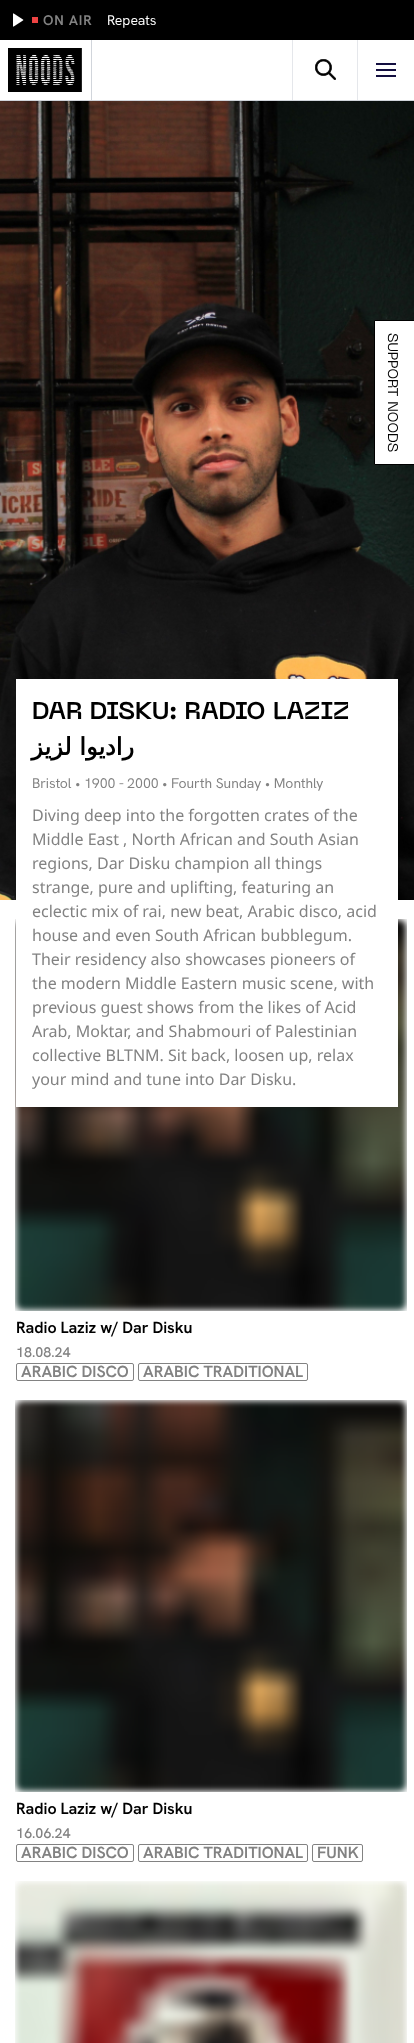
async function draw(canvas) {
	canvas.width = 414;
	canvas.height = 2043;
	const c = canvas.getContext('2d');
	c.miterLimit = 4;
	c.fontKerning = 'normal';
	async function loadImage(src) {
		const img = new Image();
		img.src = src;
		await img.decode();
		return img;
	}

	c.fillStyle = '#fff';
	c.fillRect(0, 0, 414, 2043);
	c.fillStyle = '#d1d5db';
	c.fillRect(0, 100, 414, 1);
	c.fillStyle = '#000';
	c.fillRect(0, 0, 414, 40);
	c.drawImage(await loadImage('img1.png'), 13, 13, 11, 14);
	c.fillStyle = '#ee4343';
	c.fillRect(32, 17, 6, 6);
	c.letterSpacing = '0.75px';
	c.font = 'bold 14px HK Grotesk';
	c.fillStyle = '#828282';
	c.fillText('ON AIR', 43, 25);
	c.letterSpacing = '0px';
	c.font = '500 14px HK Grotesk';
	c.fillStyle = '#fff';
	c.fillText('Repeats', 107, 25);
	c.fillStyle = '#d1d5db';
	c.fillRect(91, 40, 1, 60);
	c.drawImage(await loadImage('img2.png'), 8, 48, 74, 44);
	c.fillStyle = '#e5e7eb';
	c.fillRect(292, 40, 1, 60);
	c.drawImage(await loadImage('img3.png'), 315, 59, 21, 21);
	for (const [x, y, w, h, color] of [
		[357, 40, 1, 60, '#e5e7eb'],
		[376, 63, 20, 2, '#130f40'],
		[376, 69, 20, 2, '#130f40'],
		[376, 75, 20, 2, '#130f40'],
	]) {
		c.fillStyle = color;
		c.fillRect(x, y, w, h);
	}
	c.drawImage(await loadImage('img4.png'), 0, 101, 414, 799);
	c.fillStyle = '#fff';
	c.beginPath();
	c.rect(374.5, 320.5, 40, 144);
	c.fill();
	c.strokeStyle = '#000';
	c.stroke();
	c.font = '14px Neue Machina';
	c.fillStyle = '#000';
	c.save();
	c.translate(388, 333);
	c.rotate(90 * Math.PI / 180);
	c.fillText('SUPPORT NOODS', 0, 0);
	c.restore();
	c.drawImage(await loadImage('img5.png'), 15, 919, 392, 392);
	c.fillStyle = '#fff';
	c.fillRect(16, 679, 382, 428);
	c.font = 'bold 24px Neue Machina';
	c.fillStyle = '#000';
	c.fillText('DAR DISKU: RADIO LAZIZ', 32, 719);
	c.direction = 'rtl';
	c.font = 'bold 24px DejaVu Sans';
	c.fillText('راديوا لزيز', 134, 755);
	c.direction = 'ltr';
	c.font = '500 14px HK Grotesk';
	c.fillStyle = '#828282';
	c.fillText('Bristol • 1900 - 2000 • Fourth Sunday • Monthly', 32, 788);
	c.font = '16px Noto Sans';
	for (const [text, x, y] of [
		['Diving deep into the forgotten crates of the', 32, 821],
		['Middle East , North African and South Asian', 32, 845],
		['regions, Dar Disku champion all things', 32, 869],
		['strange, pure and uplifting, featuring an', 32, 893],
		['eclectic mix of rai, new beat, Arabic disco, acid', 32, 917],
		['house and even South African bubblegum.', 32, 941],
		['Their residency also showcases pioneers of', 32, 965],
		['the modern Middle Eastern music scene, with', 32, 989],
		['previous guest shows from the likes of Acid', 32, 1013],
		['Arab, Moktar, and Shabmouri of Palestinian', 32, 1037],
		['collective BLTNM. Sit back, loosen up, relax', 32, 1061],
		['your mind and tune into Dar Disku.', 32, 1085],
	]) {
		c.fillText(text, x, y);
	}
	c.font = 'bold 16px HK Grotesk';
	c.fillStyle = '#000';
	c.fillText('Radio Laziz w/ Dar Disku', 16, 1333);
	c.font = '600 14px HK Grotesk';
	c.fillStyle = '#828282';
	c.fillText('18.08.24', 16, 1357);
	c.beginPath();
	c.roundRect(16.5, 1363.5, 117, 17, 1.5);
	c.strokeStyle = '#828282';
	c.stroke();
	c.font = 'bold 16px HK Grotesk';
	c.fillText('ARABIC DISCO', 21, 1377);
	c.beginPath();
	c.roundRect(138.5, 1363.5, 169, 17, 1.5);
	c.stroke();
	c.fillText('ARABIC TRADITIONAL', 143, 1377);
	c.drawImage(await loadImage('img6.png'), 15, 1400, 392, 392);
	c.fillStyle = '#000';
	c.fillText('Radio Laziz w/ Dar Disku', 16, 1814);
	c.font = '600 14px HK Grotesk';
	c.fillStyle = '#828282';
	c.fillText('16.06.24', 16, 1838);
	c.beginPath();
	c.roundRect(16.5, 1844.5, 117, 17, 1.5);
	c.stroke();
	c.font = 'bold 16px HK Grotesk';
	c.fillText('ARABIC DISCO', 21, 1858);
	c.beginPath();
	c.roundRect(138.5, 1844.5, 169, 17, 1.5);
	c.stroke();
	c.fillText('ARABIC TRADITIONAL', 143, 1858);
	c.beginPath();
	c.roundRect(312.5, 1844.5, 50, 17, 1.5);
	c.stroke();
	c.fillText('FUNK', 317, 1858);
	c.drawImage(await loadImage('img7.png'), 15, 1881, 392, 162);
}

draw(document.querySelector('canvas'));
